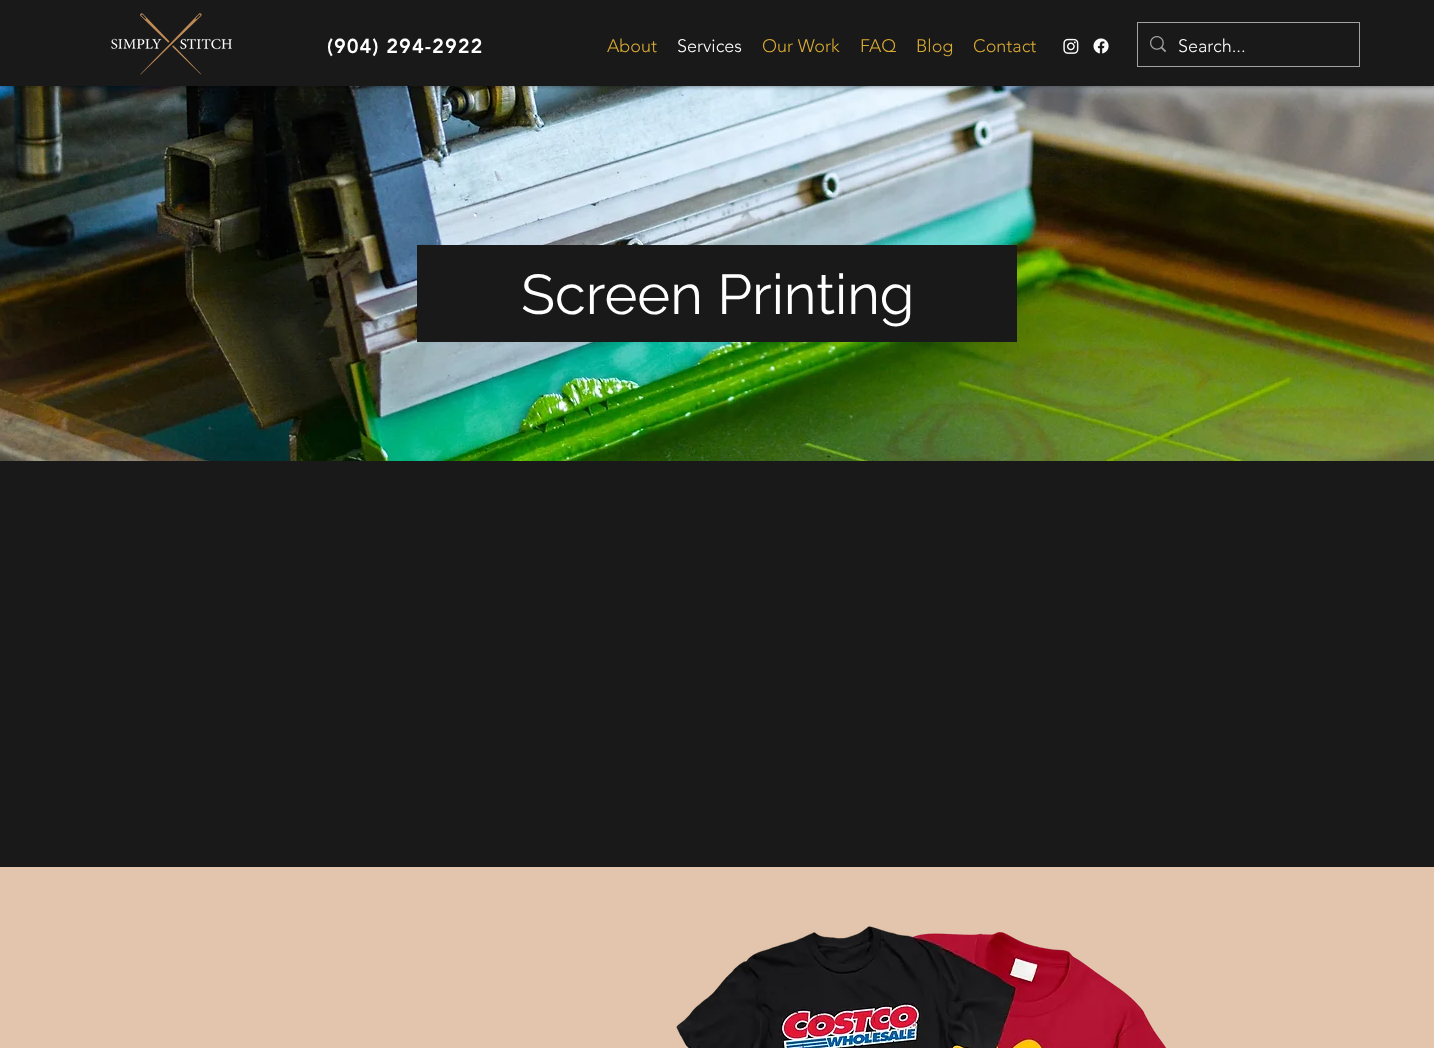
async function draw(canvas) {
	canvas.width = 1434;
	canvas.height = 1048;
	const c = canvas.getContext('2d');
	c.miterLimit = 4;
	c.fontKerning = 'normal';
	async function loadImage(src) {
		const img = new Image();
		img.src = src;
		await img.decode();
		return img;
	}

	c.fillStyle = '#191919';
	c.fillRect(0, 0, 1434, 1048);
	c.drawImage(await loadImage('img5.png'), 0, 86, 1434, 375);
	c.fillStyle = '#00000080';
	c.filter = 'blur(2.5px)';
	c.beginPath();
	c.rect(0, 0, 1434, 86);
	c.fill();
	c.filter = 'none';
	c.fillStyle = '#191919';
	c.fillRect(0, 0, 1434, 86);
	c.drawImage(await loadImage('img1.png'), 111, 13, 122, 62);
	c.letterSpacing = '1px';
	c.font = '900 20px "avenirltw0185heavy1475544"';
	c.fillStyle = '#fff';
	c.fillText('(904) 294-2922', 327, 53);
	c.letterSpacing = '0px';
	c.font = '300 18px "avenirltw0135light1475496"';
	c.fillStyle = '#dbac34';
	c.fillText('About', 607, 52);
	c.fillStyle = '#fff';
	c.fillText('Services', 677, 52);
	c.fillStyle = '#dbac34';
	for (const [text, x, y] of [
		['Our Work', 762, 52],
		['FAQ', 860, 52],
		['Blog', 916, 52],
		['Contact', 973, 52],
	]) {
		c.fillText(text, x, y);
	}
	c.drawImage(await loadImage('img2.png'), 1063, 38, 16, 16);
	c.drawImage(await loadImage('img3.png'), 1093, 38, 16, 16);
	c.strokeStyle = '#a3a3a3';
	c.strokeRect(1137.5, 22.5, 222, 44);
	c.drawImage(await loadImage('img4.png'), 1150, 36, 16, 17);
	c.fillStyle = '#fff';
	c.fillText('Search...', 1178, 52);
	c.fillStyle = '#191919';
	c.fillRect(417, 245, 600, 97);
	c.font = '56px Raleway';
	c.fillStyle = '#fff';
	c.fillText('Screen Printing', 521, 314);
	c.fillStyle = '#e3c5ad';
	c.fillRect(0, 867, 1434, 181);
	c.drawImage(await loadImage('img6.png'), 676, 926, 490, 122);
}

draw(document.querySelector('canvas'));
